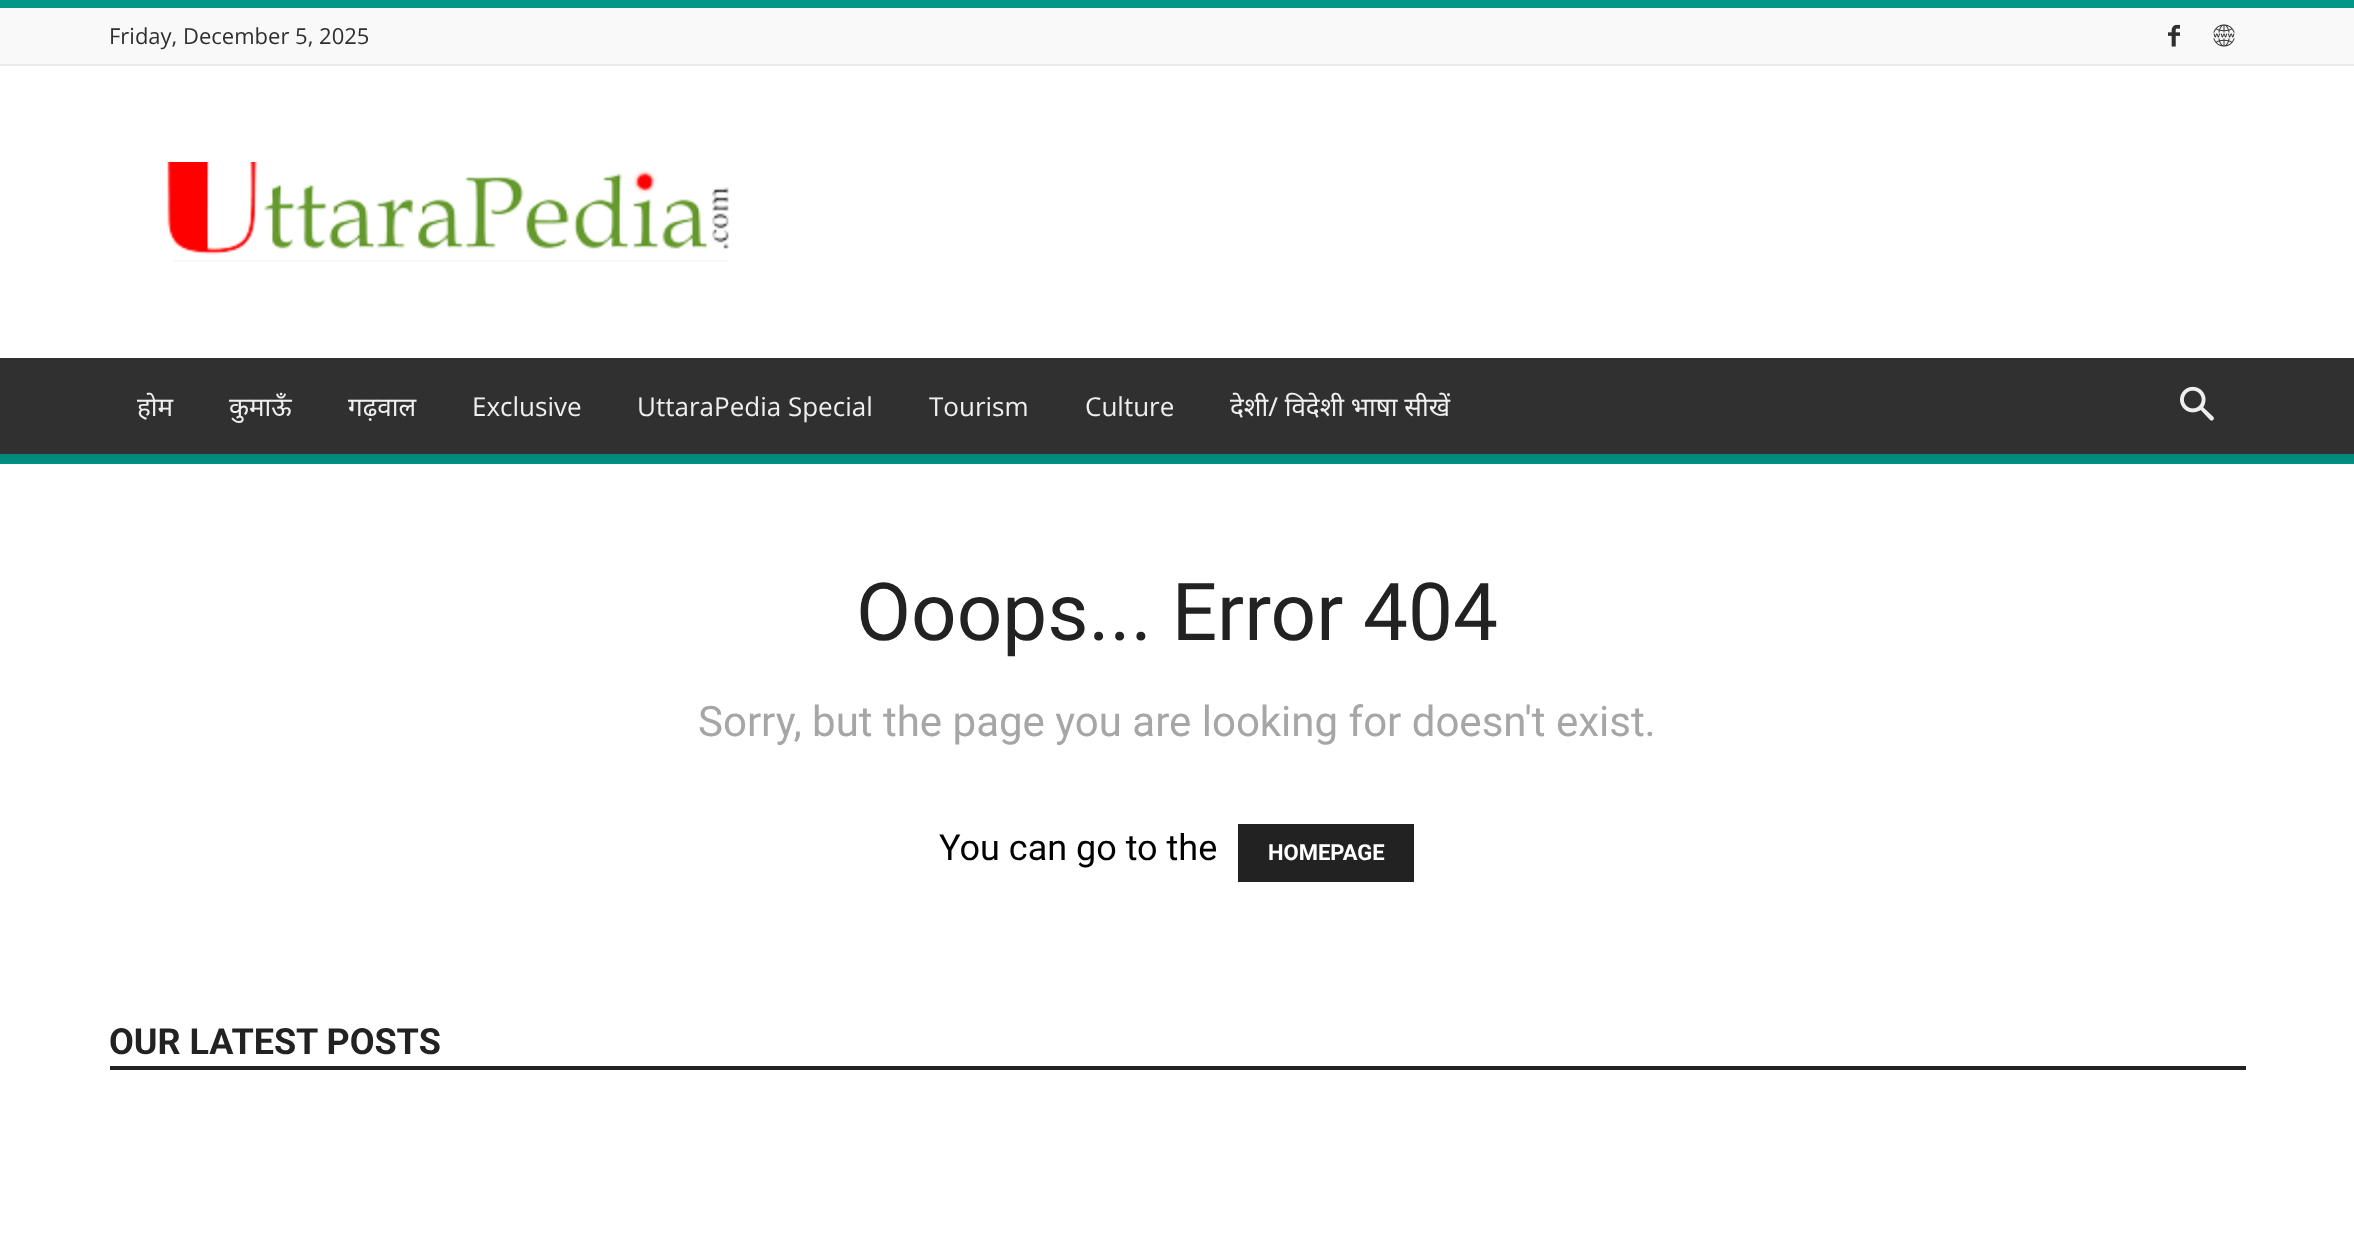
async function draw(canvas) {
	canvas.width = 2354;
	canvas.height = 1238;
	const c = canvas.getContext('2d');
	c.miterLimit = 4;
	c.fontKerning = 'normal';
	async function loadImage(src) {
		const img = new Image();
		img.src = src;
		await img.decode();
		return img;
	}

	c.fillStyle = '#fff';
	c.fillRect(0, 0, 2354, 1238);
	for (const [x, y, w, h, color] of [
		[0, 8, 2354, 56, '#f9f9f9'],
		[0, 0, 2354, 8, '#009688'],
		[0, 64, 2354, 2, '#e9e9e9'],
	]) {
		c.fillStyle = color;
		c.fillRect(x, y, w, h);
	}
	c.font = '22px Open Sans';
	c.fillStyle = '#2f2f2f';
	c.fillText('Friday, December 5, 2025', 109, 44);
	c.drawImage(await loadImage('img1.png'), 2168, 24, 12, 23);
	c.drawImage(await loadImage('img2.png'), 2213, 24, 22, 23);
	c.drawImage(await loadImage('img3.png'), 167, 162, 562, 100);
	c.fillStyle = '#303030';
	c.fillRect(0, 358, 2354, 96);
	c.font = '26px Noto Sans';
	c.fillStyle = '#efefef';
	for (const [text, x, y] of [
		['होम', 137, 416],
		['कुमाऊँ', 229, 416],
		['गढ़वाल', 348, 416],
	]) {
		c.fillText(text, x, y);
	}
	c.font = '26px Open Sans';
	for (const [text, x, y] of [
		['Exclusive', 472, 416],
		['UttaraPedia Special', 637, 416],
		['Tourism', 929, 416],
		['Culture', 1085, 416],
	]) {
		c.fillText(text, x, y);
	}
	c.font = '26px Noto Sans';
	c.fillText('देशी/ विदेशी भाषा सीखें', 1230, 416);
	c.drawImage(await loadImage('img4.png'), 2180, 386, 34, 35);
	c.fillStyle = '#009688';
	c.fillRect(0, 454, 2354, 10);
	c.drawImage(await loadImage('img5.png'), 0, 454, 2354, 10);
	c.font = '80px Roboto';
	c.fillStyle = '#222';
	c.fillText('Ooops... Error 404', 856, 640);
	c.font = '42px Roboto';
	c.fillStyle = '#a6a6a6';
	c.fillText('Sorry, but the page you are looking for doesn\'t exist.', 698, 736);
	c.font = '36px Roboto';
	c.fillStyle = '#000';
	c.fillText('You can go to the', 939, 860);
	c.fillStyle = '#222';
	c.fillRect(1238, 824, 176, 58);
	c.font = 'bold 22px Roboto';
	c.fillStyle = '#fff';
	c.fillText('HOMEPAGE', 1268, 860);
	c.fillStyle = '#222';
	c.fillRect(110, 1066, 2136, 4);
	c.font = 'bold 36px Roboto';
	c.fillText('OUR LATEST POSTS', 109, 1054);
}

draw(document.querySelector('canvas'));
